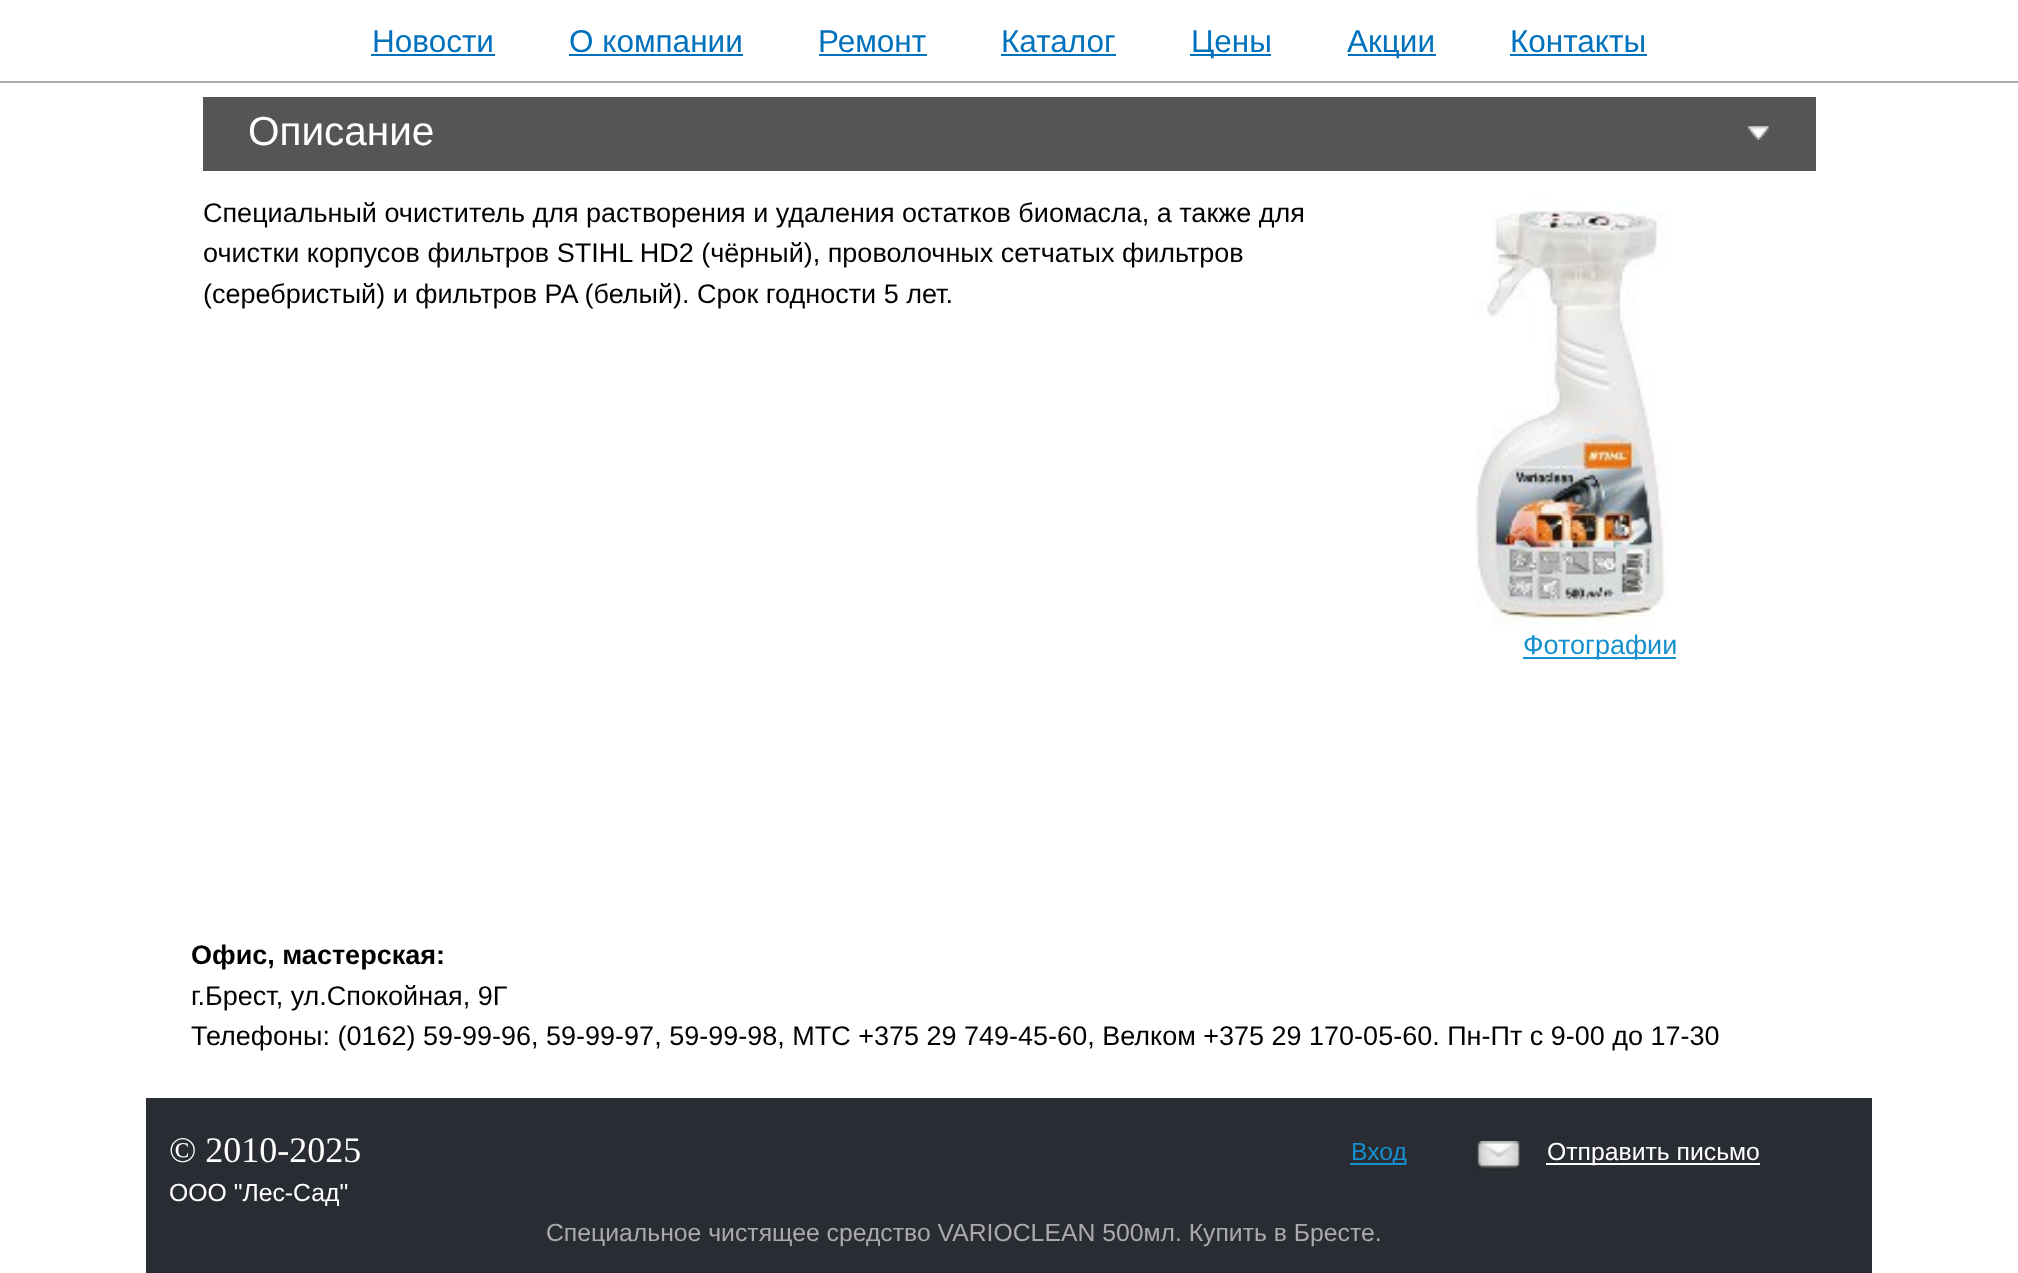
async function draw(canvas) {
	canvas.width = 2018;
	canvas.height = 1273;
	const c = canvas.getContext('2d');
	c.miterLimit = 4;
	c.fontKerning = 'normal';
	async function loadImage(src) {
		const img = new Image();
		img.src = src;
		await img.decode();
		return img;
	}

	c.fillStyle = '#fff';
	c.fillRect(0, 0, 2018, 1273);
	c.fillStyle = '#aaa';
	c.fillRect(0, 81, 2018, 2);
	c.font = '31.5px Liberation Sans';
	c.fillStyle = '#0071bc';
	c.fillText('Новости', 372, 52);
	c.fillRect(371, 54, 124, 2);
	c.fillText('О компании', 569, 52);
	c.fillRect(569, 54, 174, 2);
	c.fillText('Ремонт', 818, 52);
	c.fillRect(819, 54, 108, 2);
	c.fillText('Каталог', 1001, 52);
	c.fillRect(1001, 54, 115, 2);
	c.fillRect(1190, 54, 81, 2);
	c.fillText('Цены', 1191, 52);
	c.fillRect(1348, 54, 88, 2);
	c.fillText('Акции', 1347, 52);
	c.fillText('Контакты', 1510, 52);
	c.fillRect(1510, 54, 137, 2);
	c.fillStyle = '#555';
	c.fillRect(203, 97, 1613, 74);
	c.drawImage(await loadImage('img1.png'), 1748, 126, 21, 14);
	c.font = '40.5px Liberation Sans';
	c.fillStyle = '#fff';
	c.fillText('Описание', 248, 145);
	c.font = '27px Liberation Sans';
	c.fillStyle = '#000';
	for (const [text, x, y] of [
		['Специальный очиститель для растворения и удаления остатков биомасла, а также для', 203, 222],
		['очистки корпусов фильтров STIHL HD2 (чёрный), проволочных сетчатых фильтров', 203, 262],
		['(серебристый) и фильтров PA (белый). Срок годности 5 лет.', 203, 303],
	]) {
		c.fillText(text, x, y);
	}
	c.drawImage(await loadImage('img2.png'), 1474, 199, 195, 427);
	c.fillStyle = '#158fcd';
	c.fillRect(1523, 657, 153, 2);
	c.fillText('Фотографии', 1523, 654);
	c.font = 'bold 27px Liberation Sans';
	c.fillStyle = '#000';
	c.fillText('Офис, мастерская:', 191, 964);
	c.font = '27px Liberation Sans';
	c.fillText('г.Брест, ул.Спокойная, 9Г', 191, 1005);
	c.fillText('Телефоны: (0162) 59-99-96, 59-99-97, 59-99-98, МТС +375 29 749-45-60, Велком +375 29 170-05-60. Пн-Пт с 9-00 до 17-30', 191, 1045);
	c.fillStyle = '#2a2c33';
	c.fillRect(146, 1098, 1726, 175);
	c.font = '36px Liberation Serif';
	c.fillStyle = '#fff';
	c.fillText('© 2010-2025', 169, 1162);
	c.font = '24.75px Liberation Sans';
	c.fillText('ООО "Лес-Сад"', 169, 1201);
	c.fillStyle = '#158fcd';
	c.fillRect(1350, 1163, 56, 2);
	c.fillText('Вход', 1351, 1160);
	c.drawImage(await loadImage('img3.png'), 1477, 1141, 43, 29);
	c.fillStyle = '#fff';
	c.fillRect(1546, 1163, 214, 2);
	c.fillText('Отправить письмо', 1547, 1160);
	c.fillStyle = '#aaa';
	c.fillText('Специальное чистящее средство VARIOCLEAN 500мл. Купить в Бресте.', 546, 1241);
}

draw(document.querySelector('canvas'));
